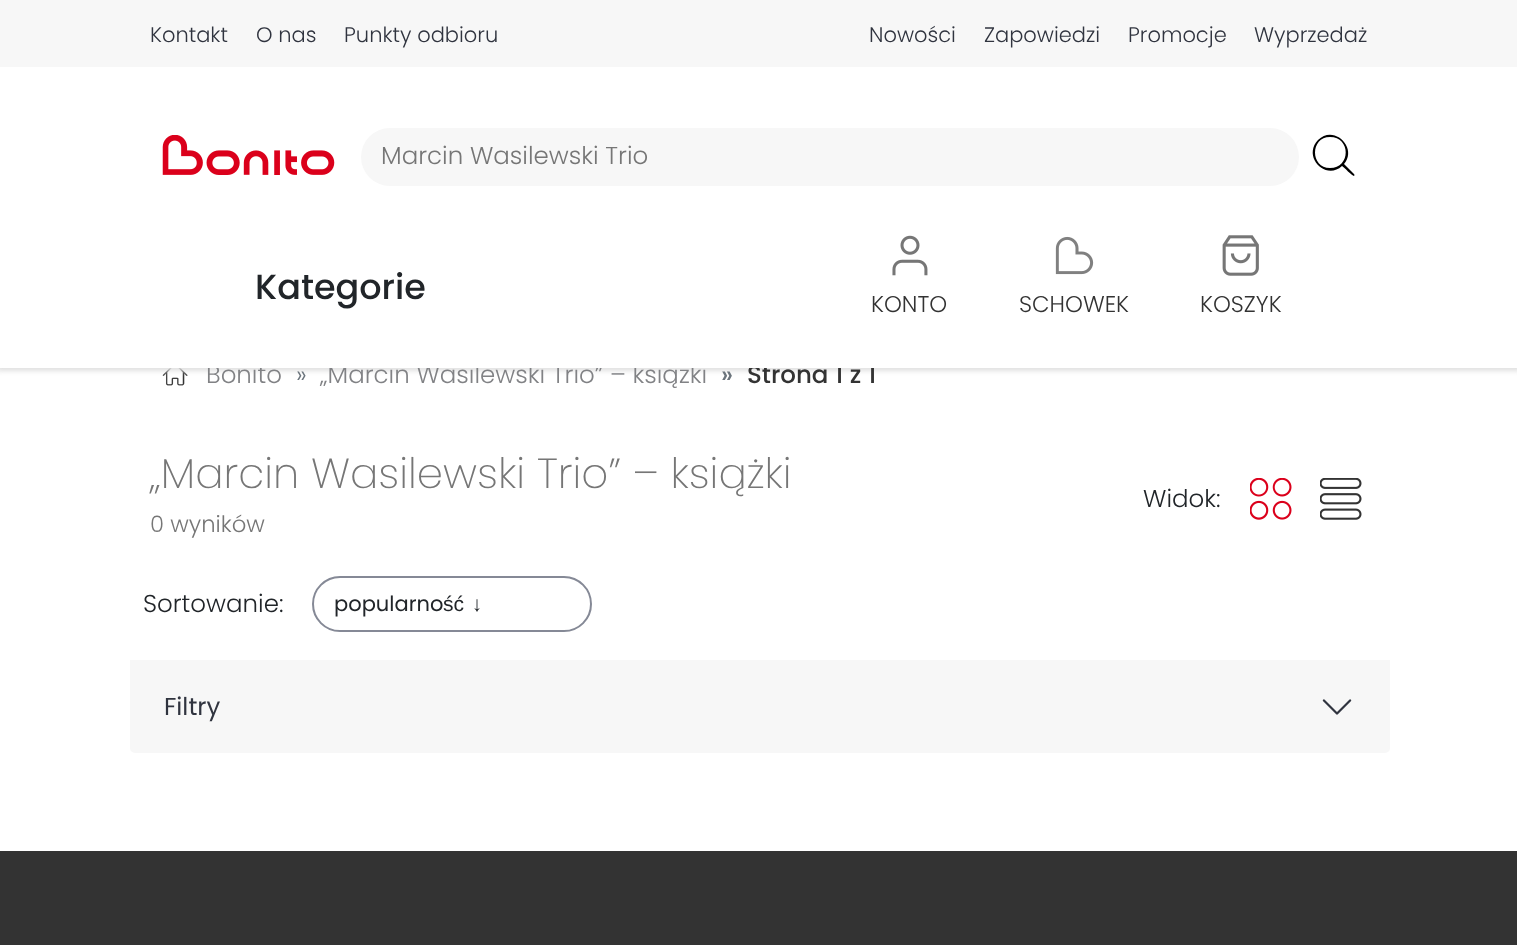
async function draw(canvas) {
	canvas.width = 1517;
	canvas.height = 945;
	const c = canvas.getContext('2d');
	c.miterLimit = 4;
	c.fontKerning = 'normal';
	async function loadImage(src) {
		const img = new Image();
		img.src = src;
		await img.decode();
		return img;
	}

	c.fillStyle = '#fff';
	c.fillRect(0, 0, 1517, 945);
	c.drawImage(await loadImage('img5.png'), 162, 368, 26, 18);
	c.fillStyle = '#e0e0e0';
	c.filter = 'blur(2.5px)';
	c.beginPath();
	c.rect(-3, -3, 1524, 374);
	c.fill();
	c.filter = 'none';
	c.font = '300 24.5px Poppins';
	c.fillStyle = '#818285';
	c.fillText('Bonito', 206, 383);
	c.fillText('„Marcin Wasilewski Trio” – książki', 320, 383);
	c.font = '500 24.5px Poppins';
	c.fillStyle = '#333';
	c.fillText('Strona 1 z 1', 747, 383);
	c.fillStyle = '#fff';
	c.fillRect(0, 67, 1517, 301);
	c.fillStyle = '#f7f7f7';
	c.fillRect(0, 0, 1517, 67);
	c.font = '300 21px Poppins';
	c.fillStyle = '#30343f';
	for (const [text, x, y] of [
		['Kontakt', 150, 42],
		['O nas', 256, 42],
		['Punkty odbioru', 344, 42],
		['Nowości', 869, 42],
		['Zapowiedzi', 984, 42],
		['Promocje', 1128, 42],
		['Wyprzedaż', 1254, 42],
	]) {
		c.fillText(text, x, y);
	}
	c.drawImage(await loadImage('img1.png'), 162, 135, 173, 40);
	c.fillStyle = '#f7f7f7';
	c.beginPath();
	c.roundRect(361, 128, 938, 58, 29);
	c.fill();
	c.font = '300 24.5px Poppins';
	c.fillStyle = '#767676';
	c.fillText('Marcin Wasilewski Trio', 381, 164);
	c.fillStyle = '#000';
	c.beginPath();
	c.moveTo(1354, 174);
	c.lineTo(1344, 164);
	c.bezierCurveTo(1358, 148, 1334, 124, 1318, 140);
	c.bezierCurveTo(1302, 157, 1326, 181, 1342, 166);
	c.bezierCurveTo(1344, 167, 1352, 176, 1354, 176);
	c.bezierCurveTo(1354, 176, 1355, 175, 1354, 174);
	c.closePath();
	c.moveTo(1330, 168);
	c.bezierCurveTo(1310, 168, 1310, 137, 1330, 137);
	c.bezierCurveTo(1351, 137, 1351, 168, 1330, 168);
	c.closePath();
	c.fill();
	c.font = '500 35px Poppins';
	c.fillStyle = '#212529';
	c.fillText('Kategorie', 255, 299);
	c.drawImage(await loadImage('img2.png'), 892, 235, 36, 41);
	c.font = '300 22.75px Poppins';
	c.fillStyle = '#333';
	c.fillText('KONTO', 871, 312);
	c.drawImage(await loadImage('img3.png'), 1055, 236, 39, 39);
	c.fillText('SCHOWEK', 1019, 312);
	c.drawImage(await loadImage('img4.png'), 1222, 235, 37, 41);
	c.fillText('KOSZYK', 1200, 312);
	c.font = '300 24.5px Poppins';
	c.fillStyle = '#6c757d';
	c.fillText('»', 296, 383);
	c.font = '500 24.5px Poppins';
	c.fillText('»', 721, 383);
	c.font = '200 42px Poppins';
	c.fillStyle = '#767676';
	c.fillText('„Marcin Wasilewski Trio” – książki', 150, 488);
	c.font = '300 22.75px Poppins';
	c.fillText('0 wyników', 150, 532);
	c.font = '300 24.5px Poppins';
	c.fillStyle = '#212529';
	c.fillText('Widok:', 1143, 507);
	c.drawImage(await loadImage('img6.png'), 1250, 478, 42, 42);
	c.drawImage(await loadImage('img7.png'), 1320, 478, 42, 42);
	c.fillText('Sortowanie:', 143, 612);
	c.beginPath();
	c.roundRect(313, 577, 278, 54, 27);
	c.strokeStyle = '#858996';
	c.lineWidth = 2;
	c.stroke();
	c.font = '21px Poppins';
	c.fillText('popularno', 334, 611);
	c.wordSpacing = '2px';
	c.font = '21px Liberation Sans';
	c.fillText('ść ↓', 443, 611);
	c.fillStyle = '#f7f7f7';
	c.beginPath();
	c.roundRect(130, 660, 1260, 93, [0, 0, 5, 5]);
	c.fill();
	c.wordSpacing = '0px';
	c.font = '24.5px Poppins';
	c.fillStyle = '#30343f';
	c.fillText('Filtry', 164, 715);
	c.drawImage(await loadImage('img8.png'), 1322, 699, 30, 16);
	c.fillStyle = '#333';
	c.fillRect(0, 851, 1517, 94);
}

draw(document.querySelector('canvas'));
